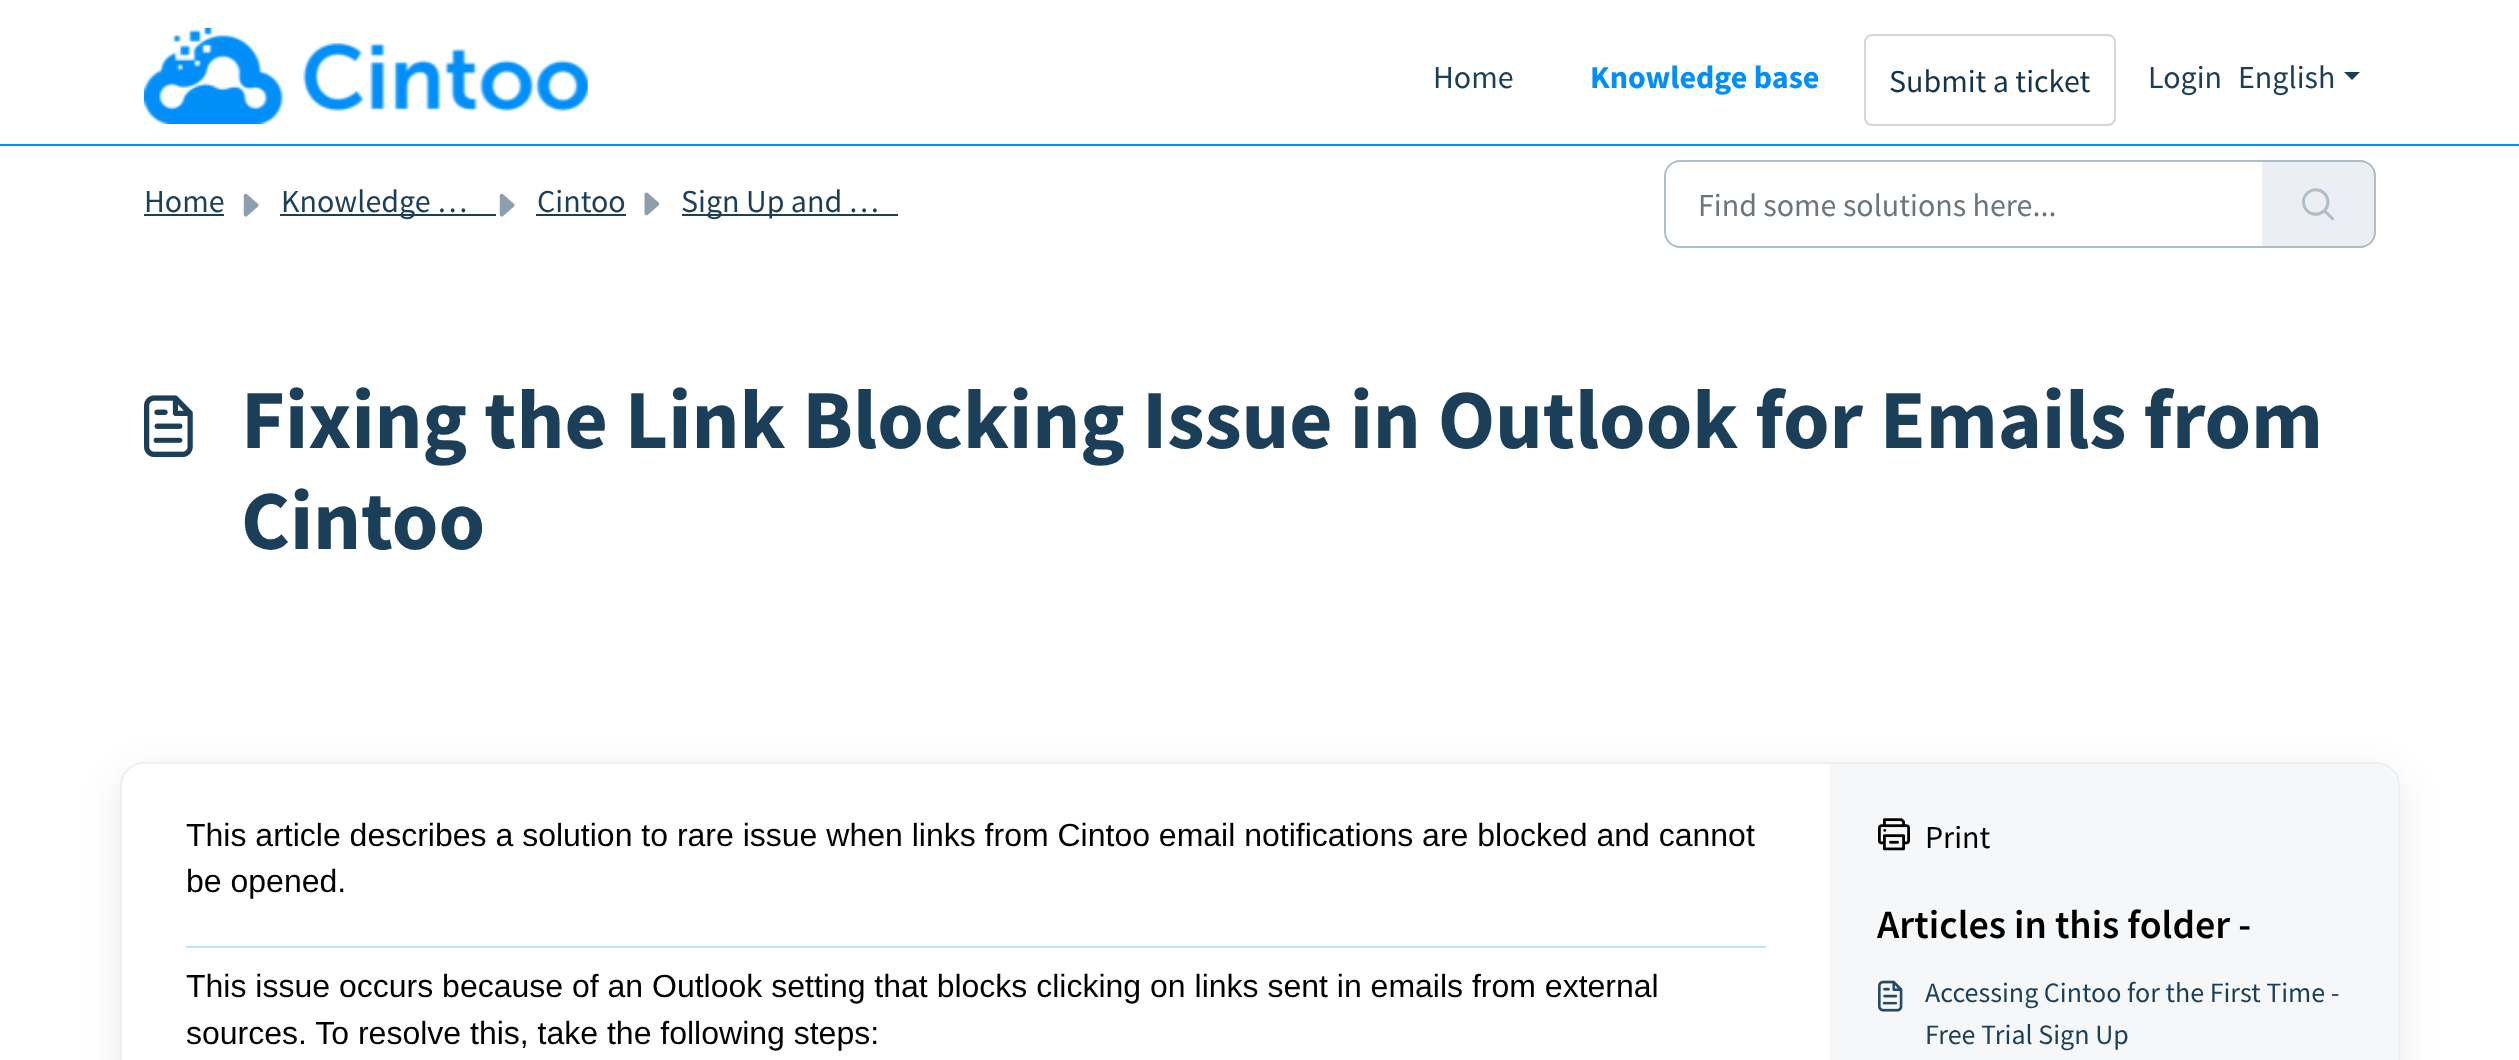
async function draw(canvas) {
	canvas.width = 2519;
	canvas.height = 1060;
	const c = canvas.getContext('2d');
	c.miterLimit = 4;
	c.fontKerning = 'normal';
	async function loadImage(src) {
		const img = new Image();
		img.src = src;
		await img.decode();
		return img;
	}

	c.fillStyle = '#fff';
	c.fillRect(0, 0, 2519, 1060);
	c.fillStyle = '#008ff9';
	c.fillRect(0, 144, 2519, 2);
	c.drawImage(await loadImage('img1.png'), 144, 28, 444, 96);
	c.font = '32px Source Sans Pro';
	c.fillStyle = '#1b3e59';
	c.fillText('Home', 1433, 88);
	c.font = 'bold 32px Source Sans Pro';
	c.fillStyle = '#008ff9';
	c.fillText('Knowledge base', 1590, 88);
	c.beginPath();
	c.roundRect(1865, 35, 250, 90, 7);
	c.strokeStyle = '#cfd7df';
	c.lineWidth = 2;
	c.stroke();
	c.font = '32px Source Sans Pro';
	c.fillStyle = '#12344d';
	c.fillText('Submit a ticket', 1889, 92);
	c.fillStyle = '#1b3e59';
	c.fillText('Login', 2148, 88);
	c.fillText('English', 2238, 88);
	c.beginPath();
	c.moveTo(2344, 72);
	c.lineTo(2360, 72);
	c.lineTo(2352, 80);
	c.closePath();
	c.fill();
	c.fillText('Home', 144, 212);
	c.fillRect(144, 214, 80, 2);
	c.drawImage(await loadImage('img2.png'), 243, 193, 16, 24);
	c.fillRect(280, 214, 216, 2);
	c.fillText('Knowledge …', 281, 212);
	c.drawImage(await loadImage('img2.png'), 499, 193, 16, 24);
	c.fillText('Cintoo', 537, 212);
	c.fillRect(536, 214, 90, 2);
	c.drawImage(await loadImage('img3.png'), 644, 192, 16, 24);
	c.fillRect(682, 214, 216, 2);
	c.fillText('Sign Up and …', 681, 212);
	c.beginPath();
	c.roundRect(1665, 161, 598, 86, [15, 0, 0, 15]);
	c.strokeStyle = '#b1bdc8';
	c.stroke();
	c.fillStyle = '#6c757d';
	c.fillText('Find some solutions here...', 1698, 216);
	c.fillStyle = '#ebeff3';
	c.beginPath();
	c.roundRect(2262, 160, 114, 88, [0, 16, 16, 0]);
	c.fill();
	c.fillStyle = '#b1bdc8';
	c.beginPath();
	c.moveTo(2262, 160);
	c.lineTo(2360, 160);
	c.bezierCurveTo(2369, 160, 2376, 167, 2376, 176);
	c.lineTo(2376, 232);
	c.bezierCurveTo(2376, 241, 2369, 248, 2360, 248);
	c.lineTo(2262, 248);
	c.closePath();
	c.moveTo(2262, 162);
	c.lineTo(2360, 162);
	c.bezierCurveTo(2368, 162, 2374, 168, 2374, 176);
	c.lineTo(2374, 232);
	c.bezierCurveTo(2374, 240, 2368, 246, 2360, 246);
	c.lineTo(2262, 246);
	c.closePath();
	c.fill('evenodd');
	c.drawImage(await loadImage('img4.png'), 2302, 188, 32, 33);
	c.drawImage(await loadImage('img5.png'), 144, 395, 49, 63);
	c.font = 'bold 84px Source Sans Pro';
	c.fillStyle = '#1b3e59';
	c.fillText('Fixing the Link Blocking Issue in Outlook for Emails from', 241, 448);
	c.fillText('Cintoo', 241, 549);
	c.save();
	c.beginPath();
	c.moveTo(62, 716);
	c.lineTo(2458, 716);
	c.lineTo(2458, 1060);
	c.lineTo(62, 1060);
	c.closePath();
	c.moveTo(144, 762);
	c.lineTo(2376, 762);
	c.bezierCurveTo(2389.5, 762, 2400, 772.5, 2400, 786);
	c.lineTo(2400, 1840);
	c.bezierCurveTo(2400, 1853.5, 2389.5, 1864, 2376, 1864);
	c.lineTo(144, 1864);
	c.bezierCurveTo(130.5, 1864, 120, 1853.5, 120, 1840);
	c.lineTo(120, 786);
	c.bezierCurveTo(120, 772.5, 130.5, 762, 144, 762);
	c.closePath();
	c.clip('evenodd');
	c.fillStyle = '#27313a1a';
	c.filter = 'blur(19px)';
	c.beginPath();
	c.roundRect(120, 774, 2280, 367, 24);
	c.fill();
	c.filter = 'none';
	c.restore();
	c.beginPath();
	c.roundRect(121, 763, 2278, 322, 23);
	c.strokeStyle = '#ebeff3';
	c.stroke();
	c.font = '32px Liberation Sans';
	c.fillStyle = '#000';
	c.fillText('This article describes a solution to rare issue when links from Cintoo email notifications are blocked and cannot', 186, 846);
	c.fillText('be opened.', 186, 892);
	c.fillStyle = '#bfe3fe';
	c.fillRect(186, 946, 1580, 2);
	c.fillStyle = '#000';
	c.fillText('This issue occurs because of an Outlook setting that blocks clicking on links sent in emails from external', 186, 997);
	c.fillText('sources. To resolve this, take the following steps:', 186, 1044);
	c.fillStyle = '#f5f7f9';
	c.beginPath();
	c.moveTo(1830, 764);
	c.lineTo(2374, 764);
	c.bezierCurveTo(2387.5, 764, 2398, 774.5, 2398, 788);
	c.lineTo(2398, 1060);
	c.bezierCurveTo(2398, 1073.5, 2387.5, 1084, 2374, 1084);
	c.lineTo(1830, 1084);
	c.closePath();
	c.fill();
	c.drawImage(await loadImage('img6.png'), 1878, 818, 32, 33);
	c.font = '32px Source Sans Pro';
	c.fillStyle = '#000';
	c.fillText('Print', 1925, 848);
	c.font = '600 40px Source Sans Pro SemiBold';
	c.fillText('Articles in this folder -', 1877, 938);
	c.drawImage(await loadImage('img7.png'), 1878, 980, 25, 32);
	c.font = '28px Source Sans Pro';
	c.fillStyle = '#1b3e59';
	c.fillText('Accessing Cintoo for the First Time -', 1925, 1002);
	c.fillText('Free Trial Sign Up', 1925, 1044);
}

draw(document.querySelector('canvas'));
